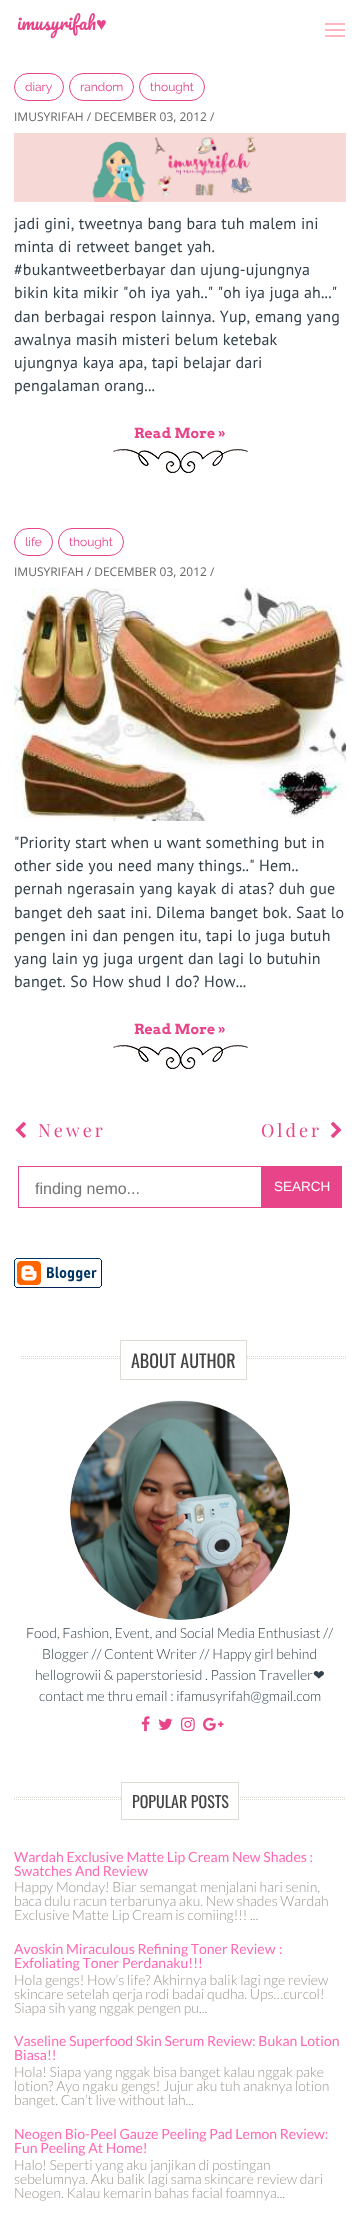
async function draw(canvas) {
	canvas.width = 360;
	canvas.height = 2240;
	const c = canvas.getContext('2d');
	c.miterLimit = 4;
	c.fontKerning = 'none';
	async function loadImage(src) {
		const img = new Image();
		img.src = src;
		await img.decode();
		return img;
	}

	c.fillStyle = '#fff';
	c.fillRect(0, 0, 360, 2240);
	c.font = '18px Pacifico';
	c.fillStyle = '#e84489';
	c.fillText('imusyrifah', 17, 30);
	c.font = '18px Liberation Serif';
	c.fillText('♥', 96, 30);
	for (const [x, y, w, h, color] of [
		[325, 29, 20, 2, '#ffb6c1'],
		[325, 23, 20, 2, '#ffb6c1'],
		[325, 35, 20, 2, '#ffb6c1'],
	]) {
		c.fillStyle = color;
		c.fillRect(x, y, w, h);
	}
	c.beginPath();
	c.roundRect(14.5, 73.5, 49, 27, 13.5);
	c.strokeStyle = '#e84489';
	c.stroke();
	c.font = '12px Raleway';
	c.fillStyle = '#e84489';
	c.fillText('diary', 25, 91);
	c.beginPath();
	c.roundRect(69.5, 73.5, 64, 27, 13.5);
	c.stroke();
	c.fillText('random', 80, 91);
	c.beginPath();
	c.roundRect(139.5, 73.5, 65, 27, 13.5);
	c.stroke();
	c.fillText('thought', 150, 91);
	c.font = '12px Open Sans';
	c.fillStyle = '#666';
	c.fillText('IMUSYRIFAH / DECEMBER 03, 2012 /', 14, 121);
	c.drawImage(await loadImage('img1.png'), 14, 133, 332, 69);
	c.letterSpacing = '0.15px';
	c.font = '16px PT Sans';
	c.fillStyle = '#33414a';
	for (const [text, x, y] of [
		['jadi gini, tweetnya bang bara tuh malem ini', 14, 229],
		['minta di retweet banget yah.', 14, 252],
		['#bukantweetberbayar dan ujung-ujungnya', 14, 275],
		['bikin kita mikir "oh iya', 14, 298],
		['yah.." "oh', 176, 298],
		['iya juga ah..."', 245, 298],
		['dan berbagai respon lainnya. Yup,', 14, 322],
		['emang yang', 255, 322],
		['awalnya masih misteri belum ketebak', 14, 345],
		['ujungnya kaya apa, tapi belajar dari', 14, 368],
		['pengalaman orang...', 14, 391],
	]) {
		c.fillText(text, x, y);
	}
	c.font = 'bold 14px Arvo';
	c.fillStyle = '#e84489';
	c.fillText('Read More »', 134, 438);
	c.drawImage(await loadImage('img2.png'), 113, 449, 135, 24);
	c.beginPath();
	c.roundRect(14.5, 528.5, 38, 27, 13.5);
	c.stroke();
	c.letterSpacing = '0px';
	c.font = '12px Raleway';
	c.fillText('life', 25, 546);
	c.beginPath();
	c.roundRect(58.5, 528.5, 65, 27, 13.5);
	c.stroke();
	c.fillText('thought', 69, 546);
	c.font = '12px Open Sans';
	c.fillStyle = '#666';
	c.fillText('IMUSYRIFAH / DECEMBER 03, 2012 /', 14, 576);
	c.drawImage(await loadImage('img3.png'), 14, 588, 332, 233);
	c.letterSpacing = '0.15px';
	c.font = '16px PT Sans';
	c.fillStyle = '#33414a';
	for (const [text, x, y] of [
		['"Priority start when u want something but in', 14, 848],
		['other side you need many things.." Hem..', 14, 871],
		['pernah ngerasain yang kayak di atas? duh gue', 14, 894],
		['banget deh saat ini. Dilema banget bok. Saat lo', 14, 918],
		['pengen ini dan pengen itu, tapi lo juga butuh', 14, 941],
		['yang lain yg juga urgent dan lagi lo butuhin', 14, 964],
		['banget. So How shud I do? How...', 14, 987],
	]) {
		c.fillText(text, x, y);
	}
	c.font = 'bold 14px Arvo';
	c.fillStyle = '#e84489';
	c.fillText('Read More »', 134, 1034);
	c.drawImage(await loadImage('img2.png'), 113, 1045, 135, 24);
	c.drawImage(await loadImage('img4.png'), 15, 1121, 11, 17);
	c.letterSpacing = '3px';
	c.font = '18px Playfair Display';
	c.fillText('Newer', 38, 1137);
	c.fillText('Older', 261, 1137);
	c.drawImage(await loadImage('img5.png'), 330, 1121, 12, 17);
	c.strokeRect(18.5, 1166.5, 323, 41);
	c.letterSpacing = '0px';
	c.font = '16px Liberation Sans';
	c.fillStyle = '#757575';
	c.fillText('finding nemo...', 35, 1194);
	c.fillStyle = '#e84489';
	c.fillRect(261, 1167, 80, 40);
	c.font = '13.5px Liberation Sans';
	c.fillStyle = '#fff';
	c.fillText('SEARCH', 274, 1191);
	c.drawImage(await loadImage('img6.png'), 14, 1258, 88, 30);
	c.beginPath();
	c.moveTo(21, 1356.5);
	c.lineTo(346, 1356.5);
	c.strokeStyle = '#dcdcd4';
	c.setLineDash([1, 1]);
	c.stroke();
	c.beginPath();
	c.moveTo(21, 1358.5);
	c.lineTo(346, 1358.5);
	c.stroke();
	c.fillRect(121, 1356, 125, 3);
	c.setLineDash([]);
	c.strokeRect(120.5, 1340.5, 126, 39);
	c.font = '18px Oswald';
	c.fillStyle = '#444';
	c.fillText('ABOUT AUTHOR', 131, 1368);
	c.drawImage(await loadImage('img7.png'), 70, 1400, 220, 220);
	c.font = '300 14px Lato';
	c.fillStyle = '#33414a';
	for (const [text, x, y] of [
		['Food, Fashion, Event, and Social Media Enthusiast //', 26, 1638],
		['Blogger // Content Writer // Happy girl behind', 42, 1659],
		['hellogrowii & paperstoriesid . Passion Traveller', 35, 1680],
	]) {
		c.fillText(text, x, y);
	}
	c.font = '14px DejaVu Sans';
	c.fillText('❤', 313, 1680);
	c.font = '300 14px Lato';
	c.fillText('contact me thru email : ifamusyrifah@gmail.com', 39, 1701);
	c.drawImage(await loadImage('img8.png'), 141, 1716, 9, 16);
	c.drawImage(await loadImage('img9.png'), 158, 1718, 15, 12);
	c.drawImage(await loadImage('img10.png'), 181, 1717, 14, 15);
	c.drawImage(await loadImage('img11.png'), 203, 1717, 21, 14);
	c.beginPath();
	c.moveTo(14, 1797.5);
	c.lineTo(346, 1797.5);
	c.setLineDash([1, 1]);
	c.stroke();
	c.beginPath();
	c.moveTo(14, 1799.5);
	c.lineTo(346, 1799.5);
	c.stroke();
	c.fillStyle = '#fff';
	c.fillRect(122, 1797, 115, 3);
	c.setLineDash([]);
	c.strokeRect(121.5, 1782.5, 117, 37);
	c.font = '16px Oswald';
	c.fillStyle = '#444';
	c.fillText('POPULAR POSTS', 132, 1808);
	c.font = '14px Lato';
	c.fillStyle = '#ff69b4';
	c.fillText('Wardah Exclusive Matte Lip Cream New Shades :', 14, 1862);
	c.fillText('Swatches And Review', 14, 1876);
	c.font = '300 14px Lato';
	c.fillStyle = '#9d9792';
	for (const [text, x, y] of [
		['Happy Monday! Biar semangat menjalani hari senin,', 14, 1892],
		['baca dulu racun terbarunya aku. New shades Wardah', 14, 1906],
		['Exclusive Matte Lip Cream is comiing!!! ...', 14, 1920],
	]) {
		c.fillText(text, x, y);
	}
	c.font = '14px Lato';
	c.fillStyle = '#ff69b4';
	c.fillText('Avoskin Miraculous Refining Toner Review', 14, 1954);
	c.fillText(':', 279, 1954);
	c.fillText('Exfoliating Toner Perdanaku!!!', 14, 1968);
	c.font = '300 14px Lato';
	c.fillStyle = '#9d9792';
	for (const [text, x, y] of [
		['Hola gengs! How’s life? Akhirnya balik lagi nge review', 14, 1985],
		['skincare setelah qerja rodi badai qudha. Ups…curcol!', 14, 1999],
		['Siapa sih yang nggak pengen pu...', 14, 2013],
	]) {
		c.fillText(text, x, y);
	}
	c.font = '14px Lato';
	c.fillStyle = '#ff69b4';
	c.fillText('Vaseline Superfood Skin Serum Review: Bukan Lotion', 14, 2046);
	c.fillText('Biasa!!', 14, 2060);
	c.font = '300 14px Lato';
	c.fillStyle = '#9d9792';
	for (const [text, x, y] of [
		['Hola! Siapa yang nggak bisa banget kalau nggak pake', 14, 2077],
		['lotion? Ayo ngaku gengs! Jujur aku tuh anaknya lotion', 14, 2091],
		['banget. Can’t live without lah...', 14, 2105],
	]) {
		c.fillText(text, x, y);
	}
	c.font = '14px Lato';
	c.fillStyle = '#ff69b4';
	c.fillText('Neogen Bio-Peel Gauze Peeling Pad Lemon Review:', 14, 2139);
	c.fillText('Fun Peeling At Home!', 14, 2153);
	c.font = '300 14px Lato';
	c.fillStyle = '#9d9792';
	for (const [text, x, y] of [
		['Halo! Seperti yang aku janjikan di postingan', 14, 2170],
		['sebelumnya. Aku balik lagi sama skincare review dari', 14, 2184],
		['Neogen. Kalau kemarin bahas facial foamnya...', 14, 2198],
	]) {
		c.fillText(text, x, y);
	}
}

draw(document.querySelector('canvas'));
